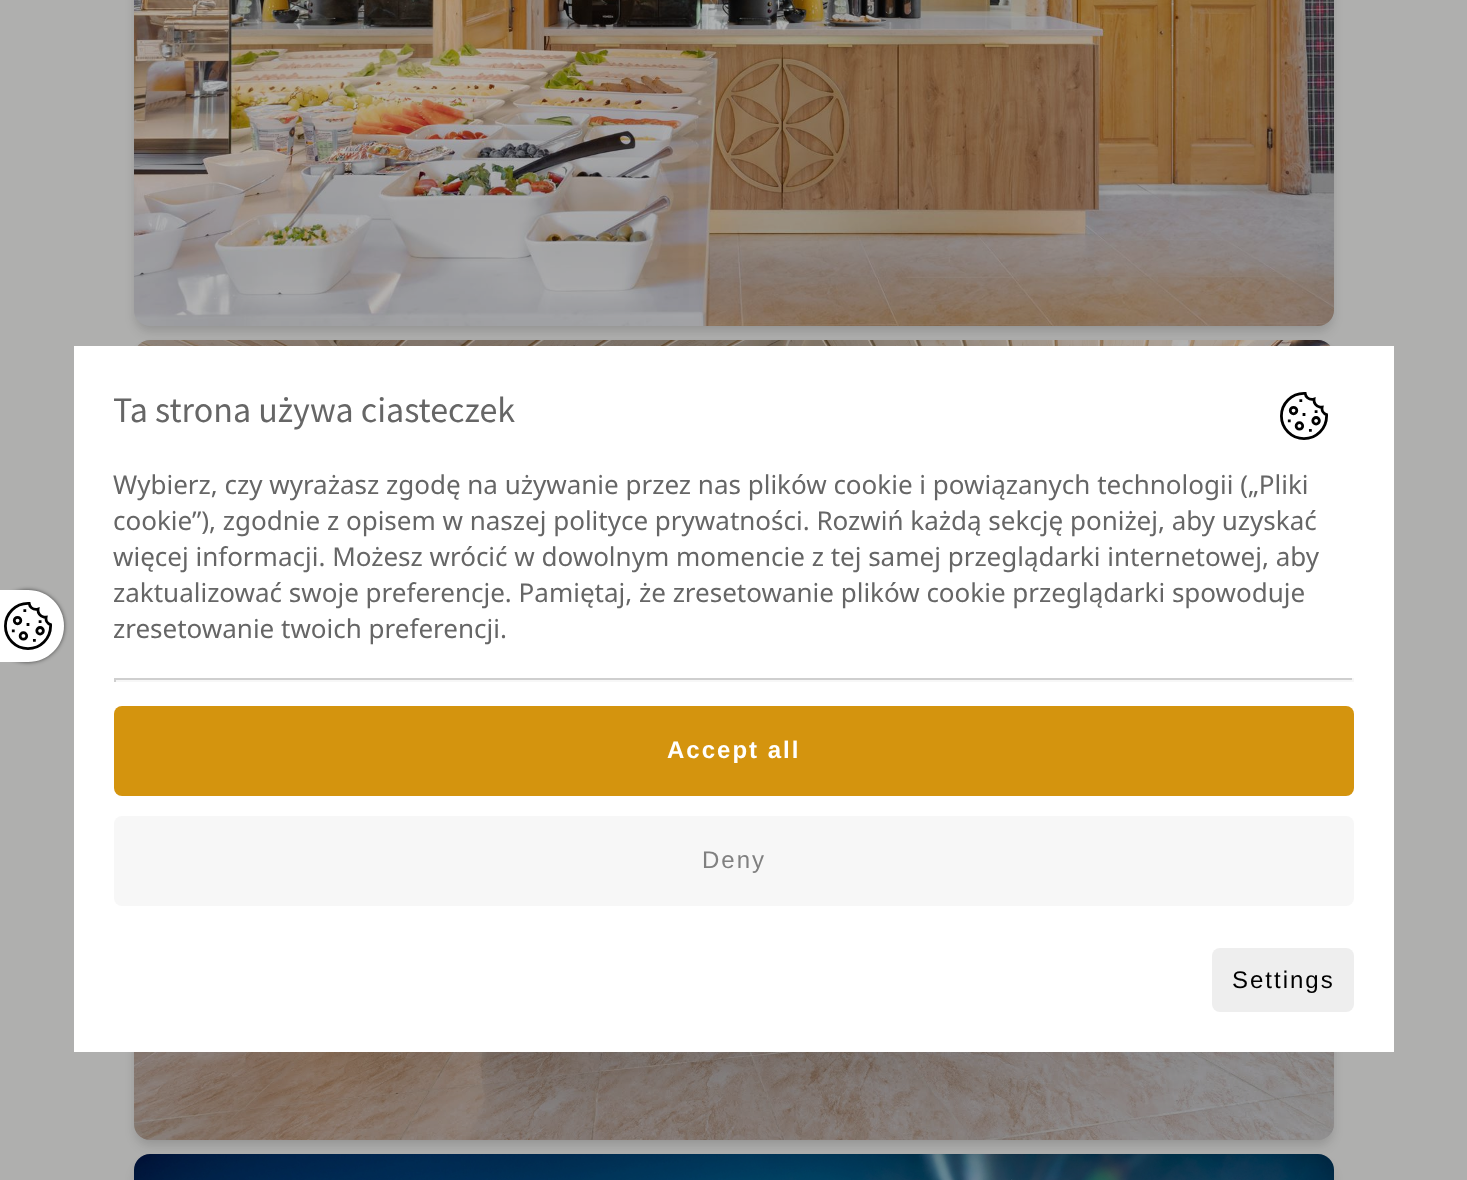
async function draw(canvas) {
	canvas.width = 1467;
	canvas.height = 1180;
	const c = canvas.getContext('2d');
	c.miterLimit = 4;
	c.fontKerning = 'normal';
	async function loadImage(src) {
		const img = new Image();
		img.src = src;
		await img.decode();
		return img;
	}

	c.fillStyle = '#afafae';
	c.fillRect(0, 0, 1467, 1180);
	c.fillStyle = '#0000000f';
	c.filter = 'blur(4px)';
	c.beginPath();
	c.roundRect(136, -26, 1196, 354, 14);
	c.fill();
	c.filter = 'none';
	c.fillStyle = '#0000001a';
	c.filter = 'blur(6px)';
	c.beginPath();
	c.roundRect(136, -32, 1196, 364, 14);
	c.fill();
	c.filter = 'none';
	c.drawImage(await loadImage('img1.png'), 134, 0, 1200, 326);
	c.fillStyle = '#0000000f';
	c.filter = 'blur(4px)';
	c.beginPath();
	c.roundRect(136, 346, 1196, 796, 14);
	c.fill();
	c.filter = 'none';
	c.fillStyle = '#0000001a';
	c.filter = 'blur(6px)';
	c.beginPath();
	c.roundRect(136, 350, 1196, 796, 14);
	c.fill();
	c.filter = 'none';
	c.drawImage(await loadImage('img2.png'), 134, 340, 1200, 800);
	c.filter = 'blur(6px)';
	c.beginPath();
	c.roundRect(136, 1164, 1196, 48, 14);
	c.fill();
	c.filter = 'none';
	c.drawImage(await loadImage('img3.png'), 134, 1154, 1200, 26);
	c.fillStyle = '#000000a8';
	c.filter = 'blur(2px)';
	c.beginPath();
	c.roundRect(-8, 590, 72, 72, 36);
	c.fill();
	c.filter = 'none';
	c.fillStyle = '#fff';
	c.beginPath();
	c.moveTo(-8, 590);
	c.lineTo(28, 590);
	c.bezierCurveTo(48, 590, 64, 606, 64, 626);
	c.bezierCurveTo(64, 646, 48, 662, 28, 662);
	c.lineTo(-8, 662);
	c.closePath();
	c.fill();
	c.drawImage(await loadImage('img4.png'), 4, 602, 48, 48);
	c.fillRect(74, 346, 1320, 706);
	c.font = '36px Source Sans Pro';
	c.fillStyle = '#666';
	c.fillText('Ta strona używa ciasteczek', 113, 422);
	c.drawImage(await loadImage('img4.png'), 1280, 392, 48, 48);
	c.font = '26px Noto Sans';
	for (const [text, x, y] of [
		['Wybierz, czy wyrażasz zgodę na używanie przez nas plików cookie i powiązanych technologii („Pliki', 113, 494],
		['cookie”), zgodnie z opisem w naszej polityce prywatności. Rozwiń każdą sekcję poniżej, aby uzyskać', 113, 530],
		['więcej informacji. Możesz wrócić w dowolnym momencie z tej samej przeglądarki internetowej, aby', 113, 566],
		['zaktualizować swoje preferencje. Pamiętaj, że zresetowanie plików cookie przeglądarki spowoduje', 113, 602],
		['zresetowanie twoich preferencji.', 113, 638],
	]) {
		c.fillText(text, x, y);
	}
	for (const [x, y, w, h, color] of [
		[114, 678, 1240, 2, '#cfcfcf'],
		[1352, 678, 2, 4, '#f7f7f7'],
		[114, 680, 1240, 2, '#f7f7f7'],
		[114, 678, 2, 4, '#cfcfcf'],
	]) {
		c.fillStyle = color;
		c.fillRect(x, y, w, h);
	}
	c.fillStyle = '#d4940e';
	c.beginPath();
	c.roundRect(114, 706, 1240, 90, 8);
	c.fill();
	c.letterSpacing = '2px';
	c.font = 'bold 24px Liberation Sans';
	c.fillStyle = '#fff';
	c.fillText('Accept all', 667, 758);
	c.fillStyle = '#f7f7f7';
	c.beginPath();
	c.roundRect(114, 816, 1240, 90, 8);
	c.fill();
	c.font = '24px Liberation Sans';
	c.fillStyle = '#808080';
	c.fillText('Deny', 702, 868);
	c.fillStyle = '#eee';
	c.beginPath();
	c.roundRect(1212, 948, 142, 64, 8);
	c.fill();
	c.fillStyle = '#000';
	c.fillText('Settings', 1232, 988);
}

draw(document.querySelector('canvas'));
